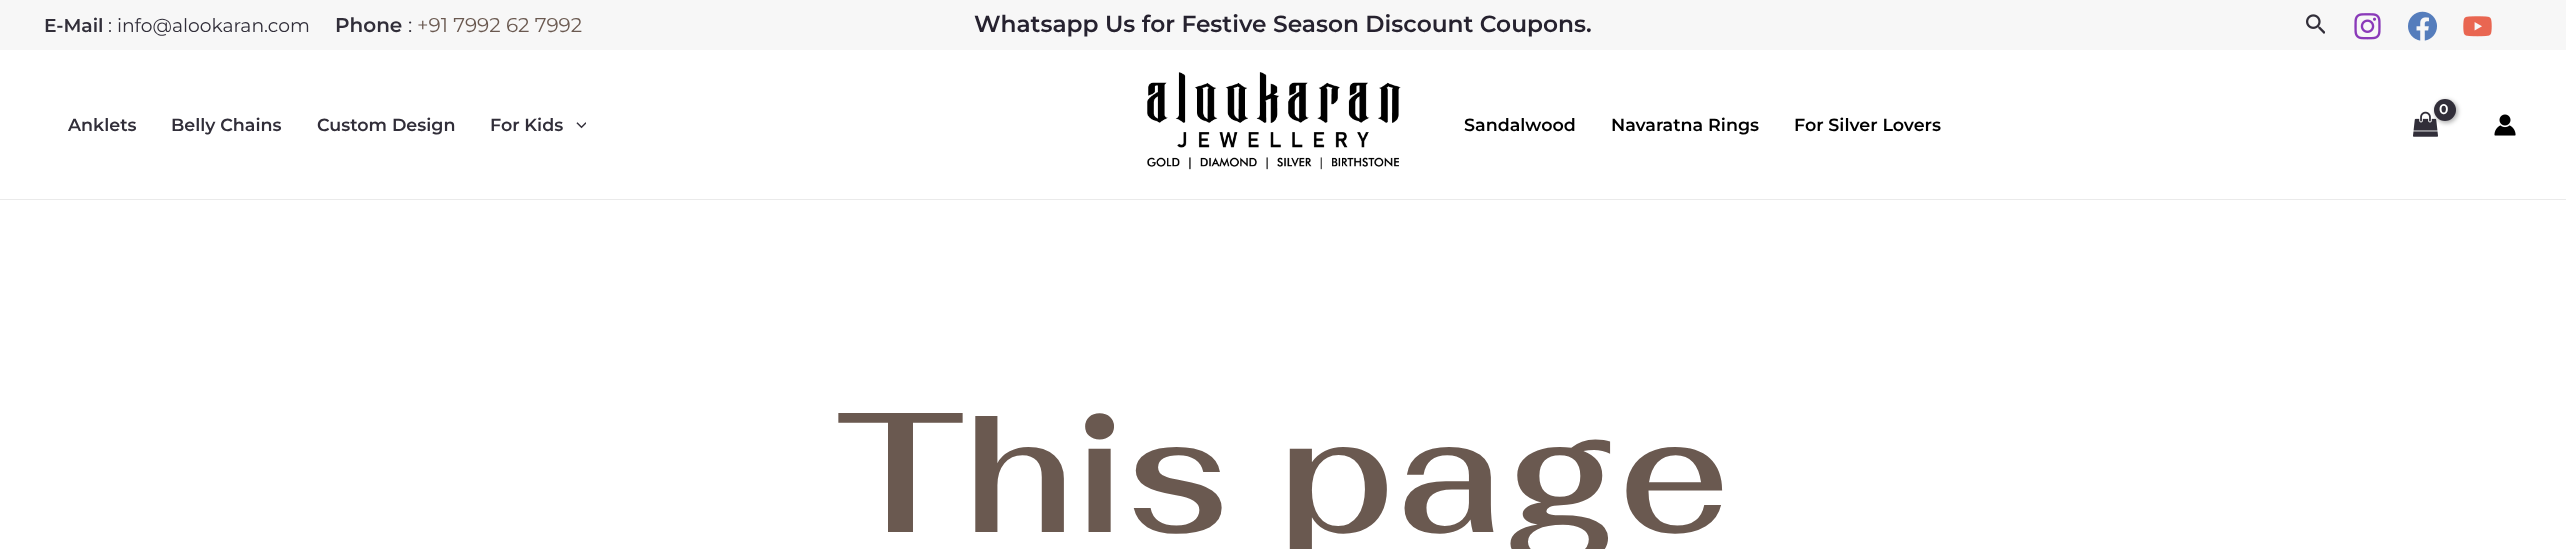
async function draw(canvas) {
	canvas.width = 2566;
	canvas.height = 549;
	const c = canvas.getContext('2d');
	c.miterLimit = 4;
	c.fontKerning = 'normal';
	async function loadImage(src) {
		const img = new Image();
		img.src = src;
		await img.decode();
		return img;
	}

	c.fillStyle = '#fff';
	c.fillRect(0, 0, 2566, 549);
	c.fillStyle = '#f7f7f7';
	c.fillRect(0, 0, 2566, 50);
	c.font = '600 18.75px Montserrat';
	c.fillStyle = '#312e39';
	c.fillText('E-Mail', 44, 32);
	c.font = '18.75px Montserrat';
	c.fillText(': info@alookaran.com', 108, 32);
	c.font = '600 20px Montserrat';
	c.fillText('Phone', 335, 32);
	c.font = '20px Montserrat';
	c.fillText(':', 408, 32);
	c.fillStyle = '#6a5950';
	c.fillText('+91 7992 62 7992', 417, 32);
	c.font = '600 23.3px Montserrat';
	c.fillStyle = '#26222f';
	c.fillText('Whatsapp Us for Festive Season Discount Coupons.', 974, 32);
	c.drawImage(await loadImage('img1.png'), 2306, 14, 19, 20);
	c.drawImage(await loadImage('img2.png'), 2354, 13, 27, 27);
	c.drawImage(await loadImage('img3.png'), 2408, 11, 29, 30);
	c.drawImage(await loadImage('img4.png'), 2463, 16, 29, 21);
	c.fillStyle = '#eaeaea';
	c.fillRect(0, 199, 2566, 1);
	c.font = '600 17.5px Montserrat';
	c.fillStyle = '#312e39';
	for (const [text, x, y] of [
		['Anklets', 68, 131],
		['Belly Chains', 171, 131],
		['Custom Design', 317, 131],
		['For Kids', 490, 131],
	]) {
		c.fillText(text, x, y);
	}
	c.drawImage(await loadImage('img5.png'), 576, 122, 10, 7);
	c.drawImage(await loadImage('img6.png'), 1147, 72, 254, 98);
	c.drawImage(await loadImage('img7.png'), 2413, 111, 25, 26);
	c.fillStyle = '#0000004d';
	c.filter = 'blur(2px)';
	c.beginPath();
	c.roundRect(2435, 100, 23, 23, 11.5);
	c.fill();
	c.filter = 'none';
	c.fillStyle = '#312e39';
	c.beginPath();
	c.arc(2445, 110, 11, 0, 2 * Math.PI);
	c.fill();
	c.letterSpacing = '-1px';
	c.font = '600 14px Montserrat';
	c.fillStyle = '#fff';
	c.fillText('0', 2439, 114);
	c.letterSpacing = '0px';
	c.font = '600 17.5px Montserrat';
	c.fillStyle = '#000';
	for (const [text, x, y] of [
		['Sandalwood', 1464, 131],
		['Navaratna Rings', 1611, 131],
		['For Silver Lovers', 1794, 131],
	]) {
		c.fillText(text, x, y);
	}
	c.drawImage(await loadImage('img8.png'), 2494, 114, 22, 22);
	c.font = '600 170px Fahkwang';
	c.fillStyle = '#6a5950';
	c.fillText('This page', 837, 532);
}

draw(document.querySelector('canvas'));
